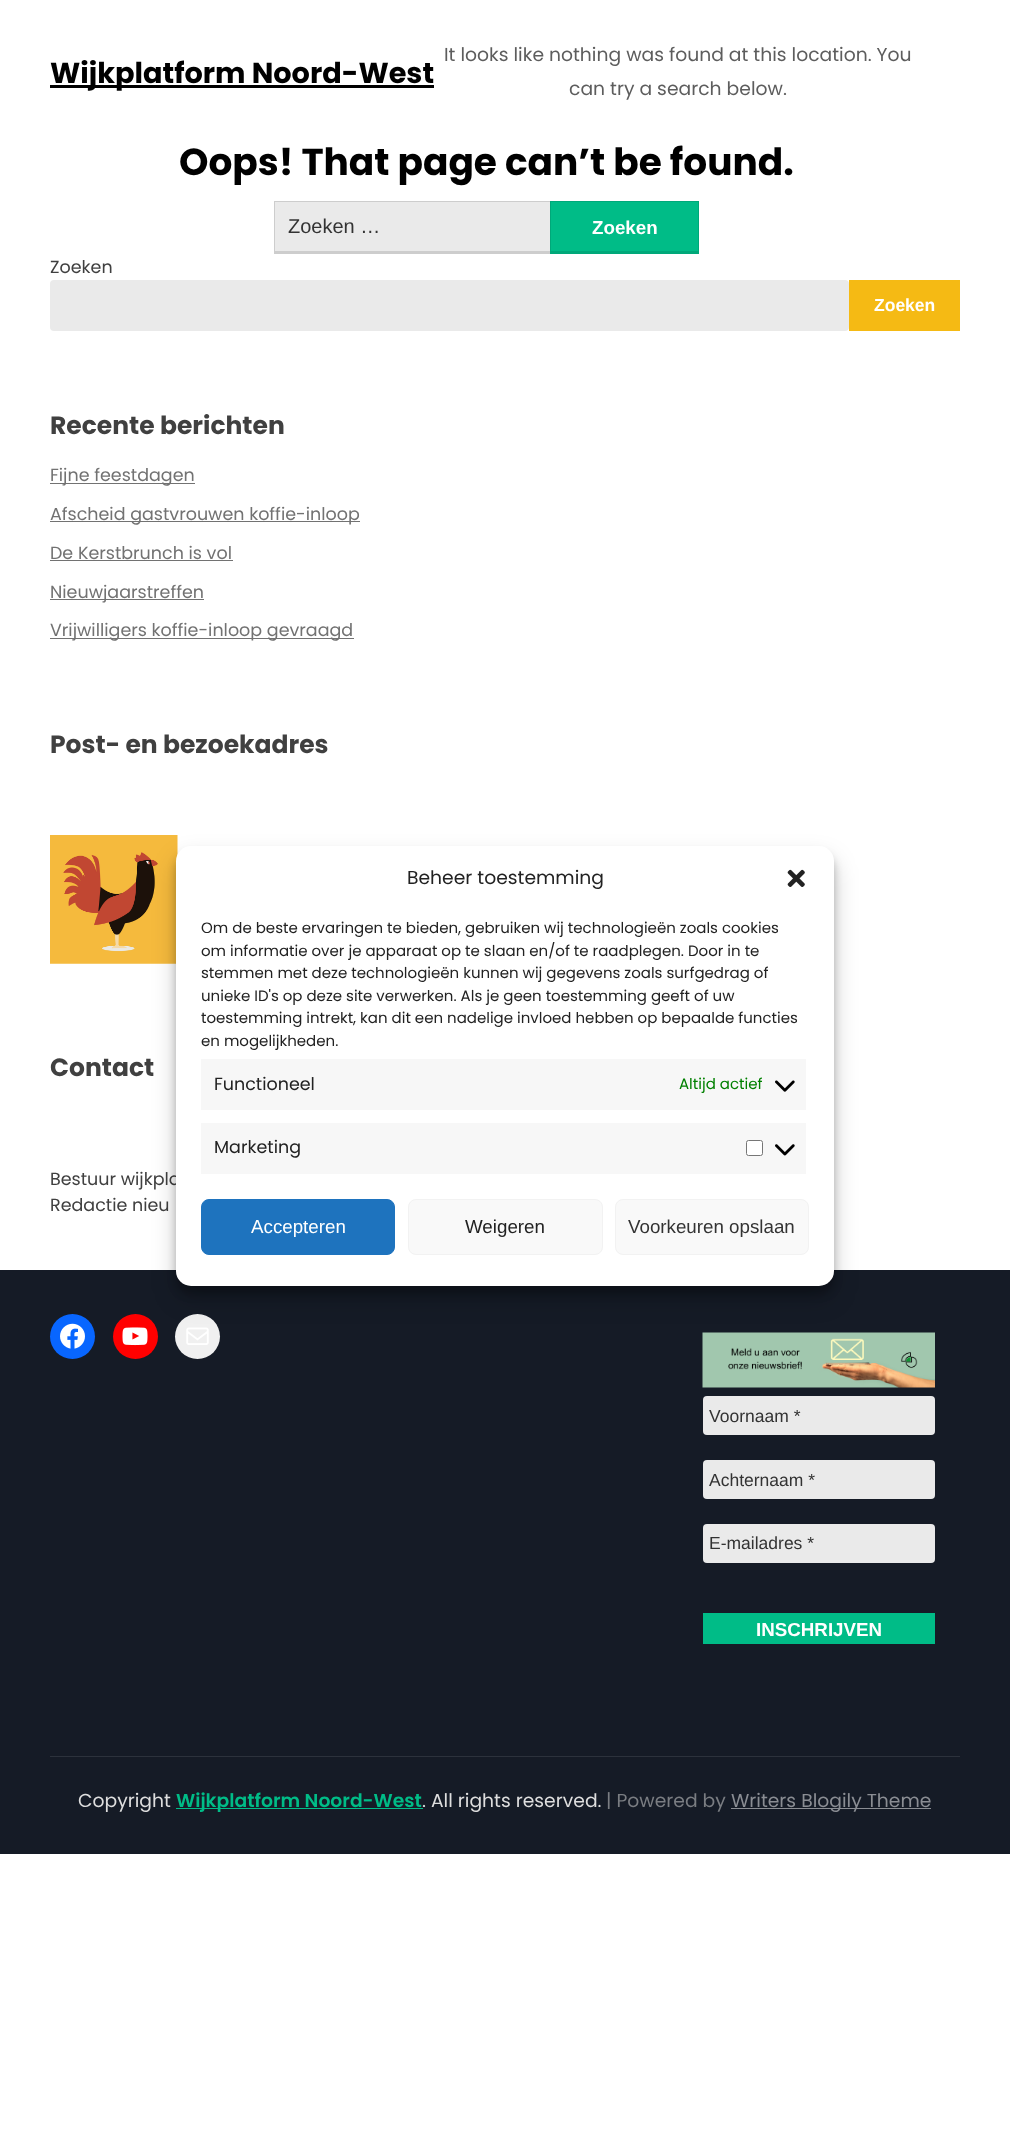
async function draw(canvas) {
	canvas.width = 1010;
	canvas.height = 2131;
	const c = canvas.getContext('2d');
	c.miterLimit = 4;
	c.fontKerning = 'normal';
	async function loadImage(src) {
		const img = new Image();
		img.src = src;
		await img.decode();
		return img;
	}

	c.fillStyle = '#fff';
	c.fillRect(0, 0, 1010, 2131);
	c.font = '18.75px Poppins';
	c.fillStyle = '#5d5d5d';
	c.fillText('It looks like nothing was found at this location. You', 444, 61);
	c.fillText('can try a search below.', 569, 95);
	for (const [x, y, w, h, color] of [
		[275, 202, 275, 49, '#eaeaea'],
		[274, 201, 276, 1, '#cdcdcd'],
		[274, 251, 276, 3, '#cdcdcd'],
		[274, 201, 1, 53, '#cdcdcd'],
	]) {
		c.fillStyle = color;
		c.fillRect(x, y, w, h);
	}
	c.font = '20px Liberation Sans';
	c.fillStyle = '#333';
	c.fillText('Zoeken …', 288, 233);
	c.fillStyle = '#00bc87';
	c.fillRect(550, 201, 149, 53);
	c.fillStyle = '#00a97a';
	c.beginPath();
	c.moveTo(550, 201);
	c.lineTo(699, 201);
	c.lineTo(698, 202);
	c.lineTo(551, 202);
	c.closePath();
	c.fill();
	c.fillStyle = '#0000001a';
	c.beginPath();
	c.moveTo(699, 201);
	c.lineTo(699, 254);
	c.lineTo(698, 251);
	c.lineTo(698, 202);
	c.closePath();
	c.fill();
	c.beginPath();
	c.moveTo(699, 254);
	c.lineTo(550, 254);
	c.lineTo(551, 251);
	c.lineTo(698, 251);
	c.closePath();
	c.fill();
	c.beginPath();
	c.moveTo(550, 254);
	c.lineTo(550, 201);
	c.lineTo(551, 202);
	c.lineTo(551, 251);
	c.closePath();
	c.fill();
	c.font = 'bold 18.75px Liberation Sans';
	c.fillStyle = '#fff';
	c.fillText('Zoeken', 592, 234);
	c.font = 'bold 37.5px Poppins';
	c.fillStyle = '#000';
	c.fillText('Oops! That page can’t be found.', 179, 175);
	c.font = '17.5px Poppins';
	c.fillStyle = '#404040';
	c.fillText('Zoeken', 50, 273);
	c.fillStyle = '#eaeaea';
	c.beginPath();
	c.roundRect(50, 280, 799, 51, 4);
	c.fill();
	c.fillStyle = '#f5ba14';
	c.fillRect(849, 280, 111, 51);
	c.font = 'bold 17.5px Liberation Sans';
	c.fillStyle = '#fff';
	c.fillText('Zoeken', 874, 311);
	c.font = 'bold 25px Poppins';
	c.fillStyle = '#404040';
	c.fillText('Recente berichten', 50, 434);
	c.fillStyle = '#727272';
	c.fillRect(50, 483, 145, 1);
	c.font = '17.5px Poppins';
	c.fillText('Fijne feestdagen', 50, 481);
	c.fillRect(50, 521, 310, 1);
	c.fillText('Afscheid gastvrouwen koffie-inloop', 50, 520);
	c.fillText('De Kerstbrunch is vol', 50, 559);
	c.fillRect(50, 560, 183, 1);
	c.fillRect(50, 599, 154, 1);
	c.fillText('Nieuwjaarstreffen', 50, 598);
	c.fillRect(50, 638, 304, 1);
	c.fillText('Vrijwilligers koffie-inloop gevraagd', 50, 636);
	c.font = 'bold 25px Poppins';
	c.fillStyle = '#404040';
	c.fillText('Post- en bezoekadres', 50, 753);
	c.drawImage(await loadImage('img1.png'), 50, 835, 128, 129);
	c.fillText('Contact', 50, 1076);
	c.font = '17.5px Poppins';
	c.fillText('Bestuur wijkpla', 50, 1185);
	c.fillText('Redactie nieu', 50, 1211);
	c.fillStyle = '#000';
	c.fillRect(50, 85, 384, 3);
	c.font = 'bold 28.75px Poppins';
	c.fillText('Wijkplatform Noord-West', 50, 83);
	c.fillStyle = '#151b26';
	c.fillRect(0, 1270, 1010, 584);
	c.fillStyle = '#0000003b';
	c.filter = 'blur(4px)';
	c.beginPath();
	c.roundRect(176, 854, 658, 440, 15);
	c.fill();
	c.filter = 'none';
	c.fillStyle = '#f00';
	c.beginPath();
	c.arc(135.5, 1336.5, 22.5, 0, 2 * Math.PI);
	c.fill();
	c.drawImage(await loadImage('img6.png'), 122, 1327, 26, 19);
	c.fillStyle = '#f0f0f0';
	c.beginPath();
	c.arc(197.5, 1336.5, 22.5, 0, 2 * Math.PI);
	c.fill();
	c.drawImage(await loadImage('img7.png'), 186, 1327, 23, 18);
	c.drawImage(await loadImage('img8.png'), 702, 1332, 233, 56);
	c.fillStyle = '#00000030';
	c.filter = 'blur(12.5px)';
	c.beginPath();
	c.roundRect(176, 859, 658, 440, 15);
	c.fill();
	c.filter = 'none';
	c.fillStyle = '#fff';
	c.beginPath();
	c.roundRect(176, 846, 658, 440, 15);
	c.fill();
	c.font = '18.75px Poppins';
	c.fillStyle = '#222';
	c.fillText('Beheer toestemming', 407, 884);
	c.drawImage(await loadImage('img2.png'), 787, 869, 18, 18);
	c.font = '15px Poppins';
	for (const [text, x, y] of [
		['Om de beste ervaringen te bieden, gebruiken wij technologieën zoals cookies', 201, 933],
		['om informatie over je apparaat op te slaan en/of te raadplegen. Door in te', 201, 956],
		['stemmen met deze technologieën kunnen wij gegevens zoals surfgedrag of', 201, 978],
		['unieke ID\'s op deze site verwerken. Als je geen toestemming geeft of uw', 201, 1001],
		['toestemming intrekt, kan dit een nadelige invloed hebben op bepaalde functies', 201, 1023],
		['en mogelijkheden.', 201, 1046],
	]) {
		c.fillText(text, x, y);
	}
	c.fillStyle = '#f7f7f7';
	c.fillRect(201, 1059, 605, 51);
	c.font = '17.5px Poppins';
	c.fillStyle = '#222';
	c.fillText('Functioneel', 214, 1090);
	c.font = '15px Poppins';
	c.fillStyle = '#008000';
	c.fillText('Altijd actief', 679, 1089);
	c.drawImage(await loadImage('img3.png'), 775, 1080, 20, 12);
	c.fillStyle = '#f7f7f7';
	c.fillRect(201, 1123, 605, 51);
	c.font = '17.5px Poppins';
	c.fillStyle = '#222';
	c.fillText('Marketing', 214, 1153);
	c.fillStyle = '#fff';
	c.beginPath();
	c.roundRect(746.5, 1140.5, 16, 15, 2);
	c.fill();
	c.strokeStyle = '#767676';
	c.stroke();
	c.drawImage(await loadImage('img4.png'), 775, 1144, 20, 12);
	c.fillStyle = '#1e73be';
	c.beginPath();
	c.roundRect(201.5, 1199.5, 193, 55, 7.5);
	c.fill();
	c.strokeStyle = '#1e73be';
	c.stroke();
	c.font = '18.75px Liberation Sans';
	c.fillStyle = '#fff';
	c.fillText('Accepteren', 251, 1233);
	c.fillStyle = '#f9f9f9';
	c.beginPath();
	c.roundRect(408.5, 1199.5, 194, 55, 7.5);
	c.fill();
	c.strokeStyle = '#f2f2f2';
	c.stroke();
	c.fillStyle = '#222';
	c.fillText('Weigeren', 465, 1233);
	c.fillStyle = '#f9f9f9';
	c.beginPath();
	c.roundRect(615.5, 1199.5, 193, 55, 7.5);
	c.fill();
	c.stroke();
	c.fillStyle = '#333';
	c.fillText('Voorkeuren opslaan', 628, 1233);
	c.fillStyle = '#2c323c';
	c.fillRect(50, 1756, 910, 1);
	c.fillStyle = '#0866ff';
	c.beginPath();
	c.arc(72.5, 1336.5, 22.5, 0, 2 * Math.PI);
	c.fill();
	c.drawImage(await loadImage('img5.png'), 60, 1323, 25, 26);
	c.fillStyle = '#eaeaea';
	c.beginPath();
	c.roundRect(703, 1396, 232, 39, 4);
	c.fill();
	c.font = '17.5px Liberation Sans';
	c.fillStyle = '#333';
	c.fillText('Voornaam *', 709, 1422);
	c.fillStyle = '#eaeaea';
	c.beginPath();
	c.roundRect(703, 1460, 232, 39, 4);
	c.fill();
	c.fillStyle = '#333';
	c.fillText('Achternaam *', 709, 1486);
	c.fillStyle = '#eaeaea';
	c.beginPath();
	c.roundRect(703, 1524, 232, 39, 4);
	c.fill();
	c.fillStyle = '#333';
	c.fillText('E-mailadres *', 709, 1549);
	c.fillStyle = '#00bc87';
	c.fillRect(703, 1613, 232, 31);
	c.font = 'bold 18.75px Liberation Sans';
	c.fillStyle = '#fff';
	c.fillText('INSCHRIJVEN', 756, 1636);
	c.font = '18.75px Poppins';
	c.fillStyle = '#dedede';
	c.fillText('Copyright', 78, 1807);
	c.fillStyle = '#00bc87';
	c.fillRect(176, 1808, 247, 1);
	c.font = '600 18.75px Poppins';
	c.fillText('Wijkplatform Noord-West', 176, 1807);
	c.font = '18.75px Poppins';
	c.fillStyle = '#dedede';
	c.fillText('. All rights reserved.', 422, 1807);
	c.fillStyle = '#7a7d82';
	c.fillText('| Powered by', 606, 1807);
	c.fillStyle = '#8a8d93';
	c.fillRect(731, 1808, 200, 1);
	c.fillText('Writers Blogily Theme', 731, 1807);
}

draw(document.querySelector('canvas'));
